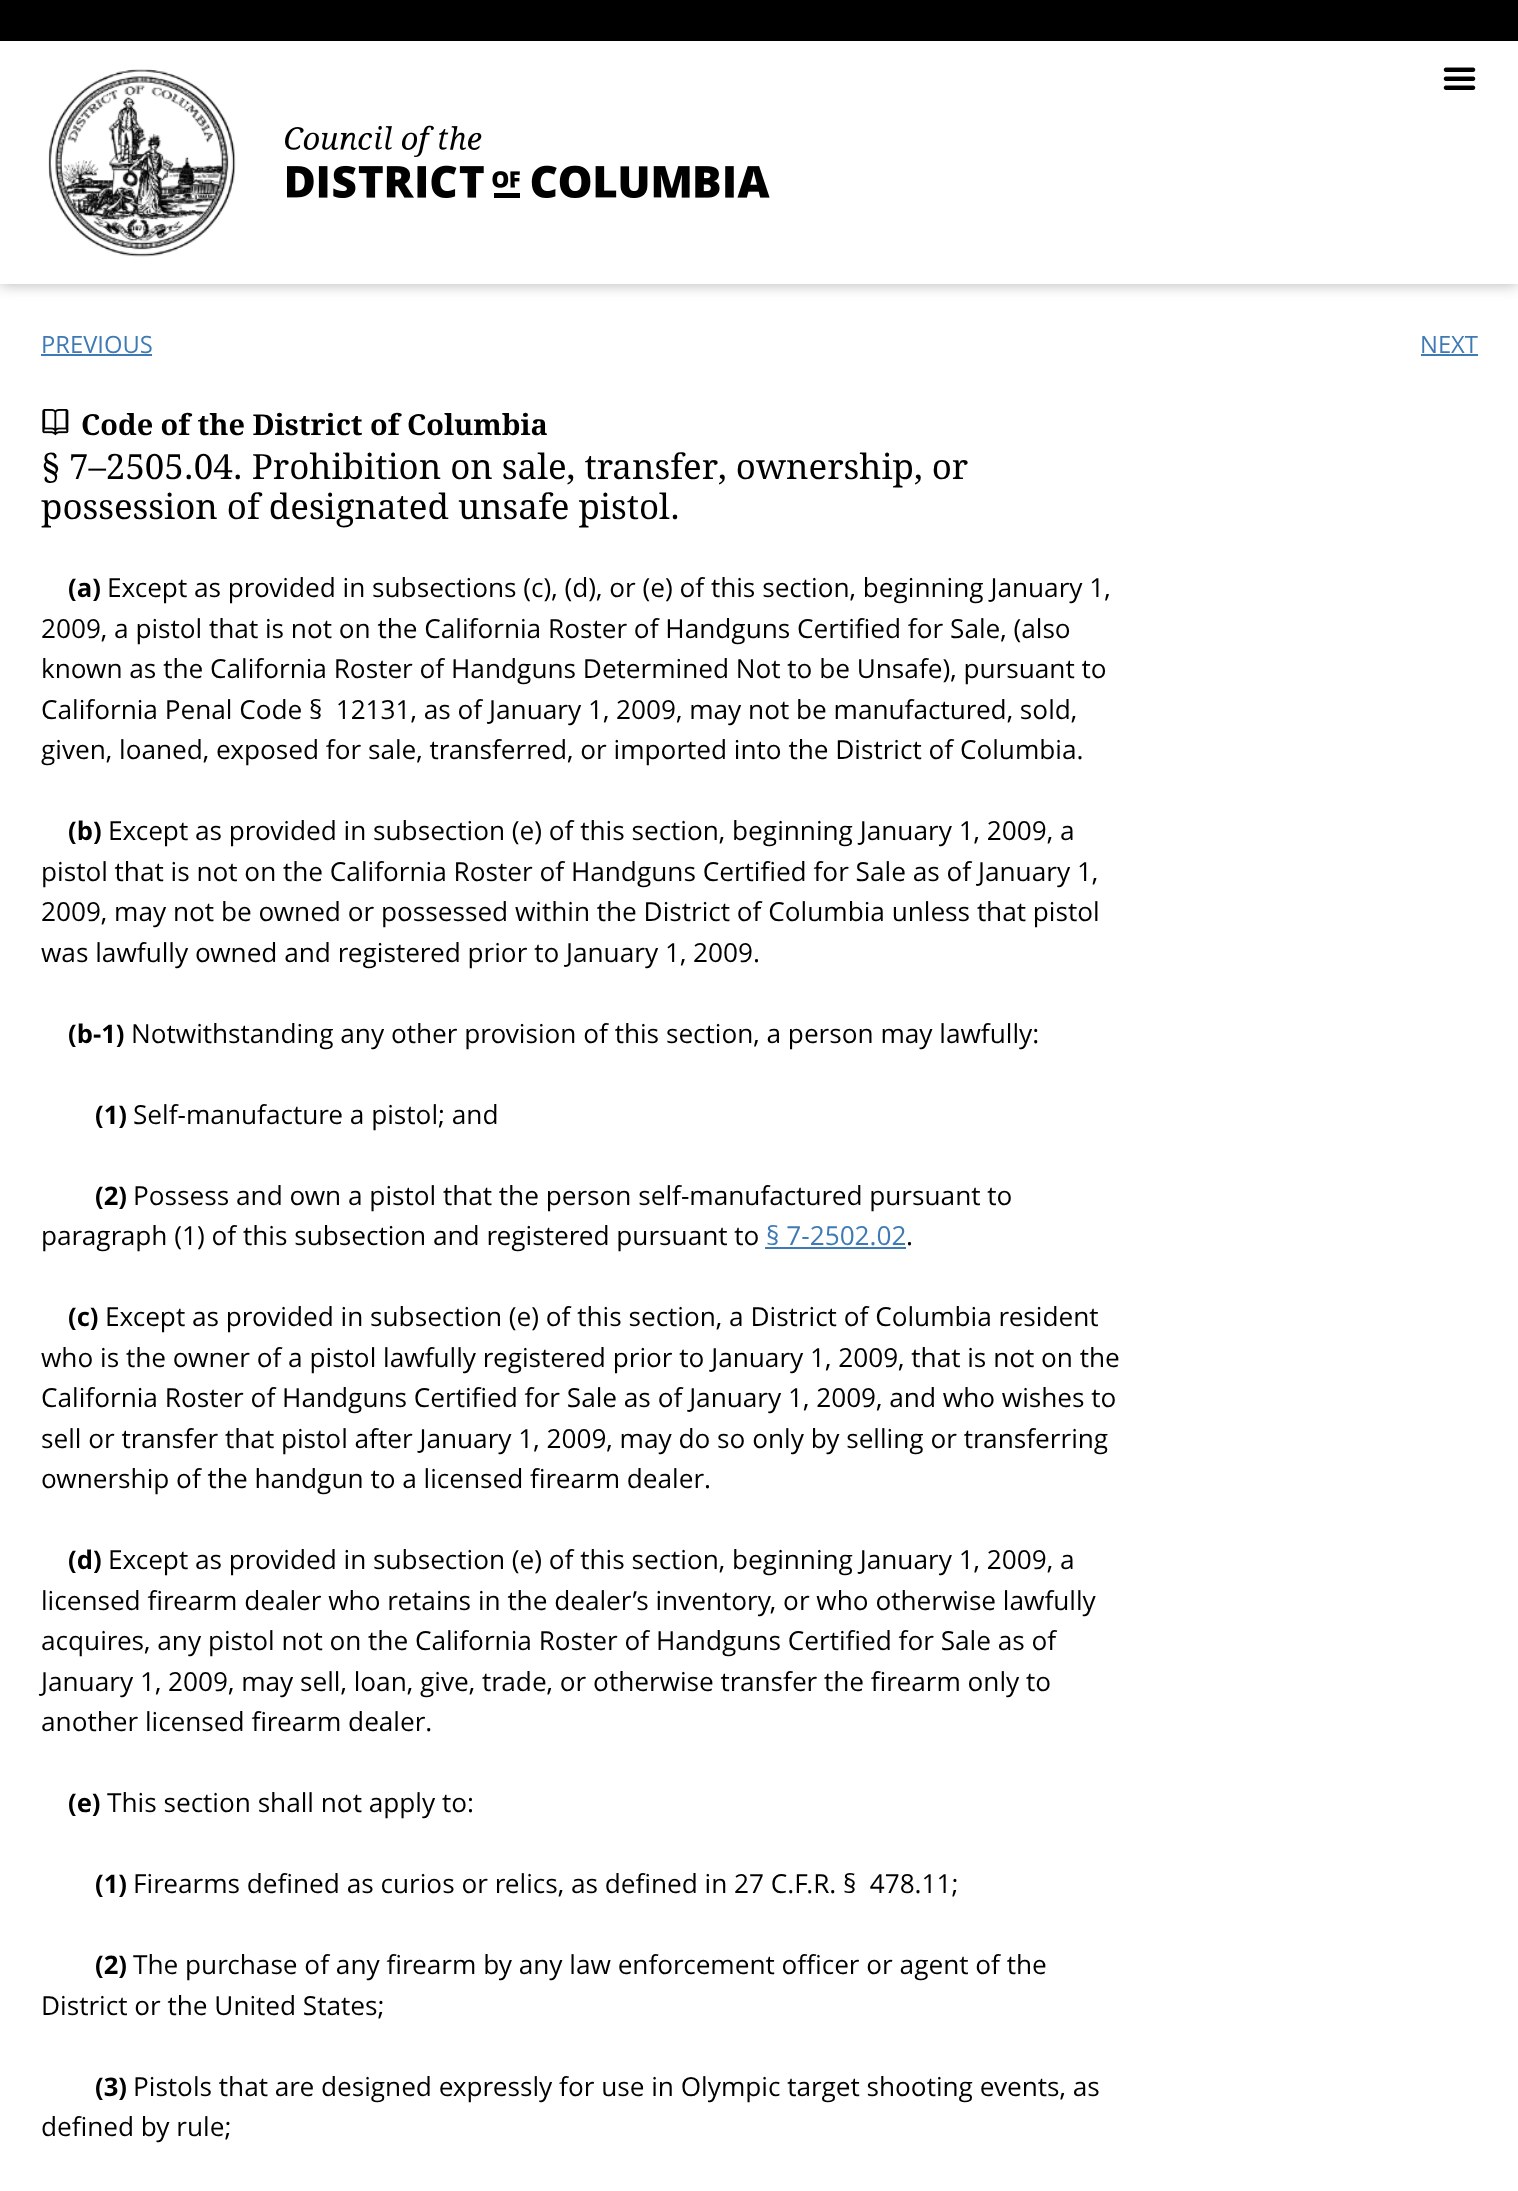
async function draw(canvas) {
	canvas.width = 1518;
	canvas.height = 2191;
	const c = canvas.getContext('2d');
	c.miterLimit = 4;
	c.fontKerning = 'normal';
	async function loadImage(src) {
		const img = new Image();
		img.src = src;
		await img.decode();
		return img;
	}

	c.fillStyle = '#fff';
	c.fillRect(0, 0, 1518, 2191);
	c.fillStyle = '#0000004d';
	c.filter = 'blur(7.5px)';
	c.beginPath();
	c.rect(0, 0, 1518, 284);
	c.fill();
	c.filter = 'none';
	c.fillStyle = '#fff';
	c.fillRect(0, 41, 1518, 243);
	c.fillStyle = '#000';
	c.fillRect(0, 0, 1518, 41);
	c.drawImage(await loadImage('img1.png'), 48, 69, 188, 188);
	c.drawImage(await loadImage('img2.png'), 285, 125, 485, 73);
	c.drawImage(await loadImage('img3.png'), 1443, 67, 33, 23);
	c.font = '24.5px Open Sans';
	c.fillStyle = '#3f7ab4';
	c.fillText('PREVIOUS', 41, 353);
	c.fillRect(41, 354, 111, 2);
	c.fillText('NEXT', 1420, 353);
	c.fillRect(1421, 354, 57, 2);
	c.drawImage(await loadImage('img4.png'), 42, 409, 27, 27);
	c.font = 'bold 29.75px Droid Serif';
	c.fillStyle = '#000';
	c.fillText('Code of the District of Columbia', 81, 435);
	c.font = '35.95px Droid Serif';
	c.fillText('§ 7–2505.04. Prohibition on sale, transfer, ownership, or', 41, 479);
	c.fillText('possession of designated unsafe pistol.', 41, 519);
	c.font = 'bold 27px Open Sans';
	c.fillText('(a)', 68, 597);
	c.font = '27px Open Sans';
	for (const [text, x, y] of [
		['Except as provided in subsections (c), (d), or (e) of this section, beginning January 1,', 107, 597],
		['2009, a pistol that is not on the California Roster of Handguns Certified for Sale, (also', 41, 638],
		['known as the California Roster of Handguns Determined Not to be Unsafe), pursuant to', 41, 678],
		['California Penal Code § 12131, as of January 1, 2009, may not be manufactured, sold,', 41, 719],
		['given, loaned, exposed for sale, transferred, or imported into the District of Columbia.', 41, 759],
	]) {
		c.fillText(text, x, y);
	}
	c.font = 'bold 27px Open Sans';
	c.fillText('(b)', 68, 840);
	c.font = '27px Open Sans';
	for (const [text, x, y] of [
		['Except as provided in subsection (e) of this section, beginning January 1, 2009, a', 108, 840],
		['pistol that is not on the California Roster of Handguns Certified for Sale as of January 1,', 41, 881],
		['2009, may not be owned or possessed within the District of Columbia unless that pistol', 41, 921],
		['was lawfully owned and registered prior to January 1, 2009.', 41, 962],
	]) {
		c.fillText(text, x, y);
	}
	c.font = 'bold 27px Open Sans';
	c.fillText('(b-1)', 68, 1043);
	c.font = '27px Open Sans';
	c.fillText('Notwithstanding any other provision of this section, a person may lawfully:', 131, 1043);
	c.font = 'bold 27px Open Sans';
	c.fillText('(1)', 95, 1124);
	c.font = '27px Open Sans';
	c.fillText('Self-manufacture a pistol; and', 133, 1124);
	c.font = 'bold 27px Open Sans';
	c.fillText('(2)', 95, 1205);
	c.font = '27px Open Sans';
	c.fillText('Possess and own a pistol that the person self-manufactured pursuant to', 133, 1205);
	c.fillText('paragraph (1) of this subsection and registered pursuant to', 41, 1245);
	c.fillStyle = '#3f7ab4';
	c.fillText('§ 7-2502.02', 766, 1245);
	c.fillRect(765, 1247, 141, 2);
	c.fillStyle = '#000';
	c.fillText('.', 906, 1245);
	c.font = 'bold 27px Open Sans';
	c.fillText('(c)', 68, 1326);
	c.font = '27px Open Sans';
	for (const [text, x, y] of [
		['Except as provided in subsection (e) of this section, a District of Columbia resident', 105, 1326],
		['who is the owner of a pistol lawfully registered prior to January 1, 2009, that is not on the', 41, 1367],
		['California Roster of Handguns Certified for Sale as of January 1, 2009, and who wishes to', 41, 1407],
		['sell or transfer that pistol after January 1, 2009, may do so only by selling or transferring', 41, 1448],
		['ownership of the handgun to a licensed firearm dealer.', 41, 1488],
	]) {
		c.fillText(text, x, y);
	}
	c.font = 'bold 27px Open Sans';
	c.fillText('(d)', 68, 1569);
	c.font = '27px Open Sans';
	for (const [text, x, y] of [
		['Except as provided in subsection (e) of this section, beginning January 1, 2009, a', 108, 1569],
		['licensed firearm dealer who retains in the dealer’s inventory, or who otherwise lawfully', 41, 1610],
		['acquires, any pistol not on the California Roster of Handguns Certified for Sale as of', 41, 1650],
		['January 1, 2009, may sell, loan, give, trade, or otherwise transfer the firearm only to', 41, 1691],
		['another licensed firearm dealer.', 41, 1731],
	]) {
		c.fillText(text, x, y);
	}
	c.font = 'bold 27px Open Sans';
	c.fillText('(e)', 68, 1812);
	c.font = '27px Open Sans';
	c.fillText('This section shall not apply to:', 107, 1812);
	c.font = 'bold 27px Open Sans';
	c.fillText('(1)', 95, 1893);
	c.font = '27px Open Sans';
	c.fillText('Firearms defined as curios or relics, as defined in 27 C.F.R. § 478.11;', 133, 1893);
	c.font = 'bold 27px Open Sans';
	c.fillText('(2)', 95, 1974);
	c.font = '27px Open Sans';
	c.fillText('The purchase of any firearm by any law enforcement officer or agent of the', 133, 1974);
	c.fillText('District or the United States;', 41, 2015);
	c.font = 'bold 27px Open Sans';
	c.fillText('(3)', 95, 2096);
	c.font = '27px Open Sans';
	c.fillText('Pistols that are designed expressly for use in Olympic target shooting events, as', 133, 2096);
	c.fillText('defined by rule;', 41, 2136);
}

draw(document.querySelector('canvas'));
